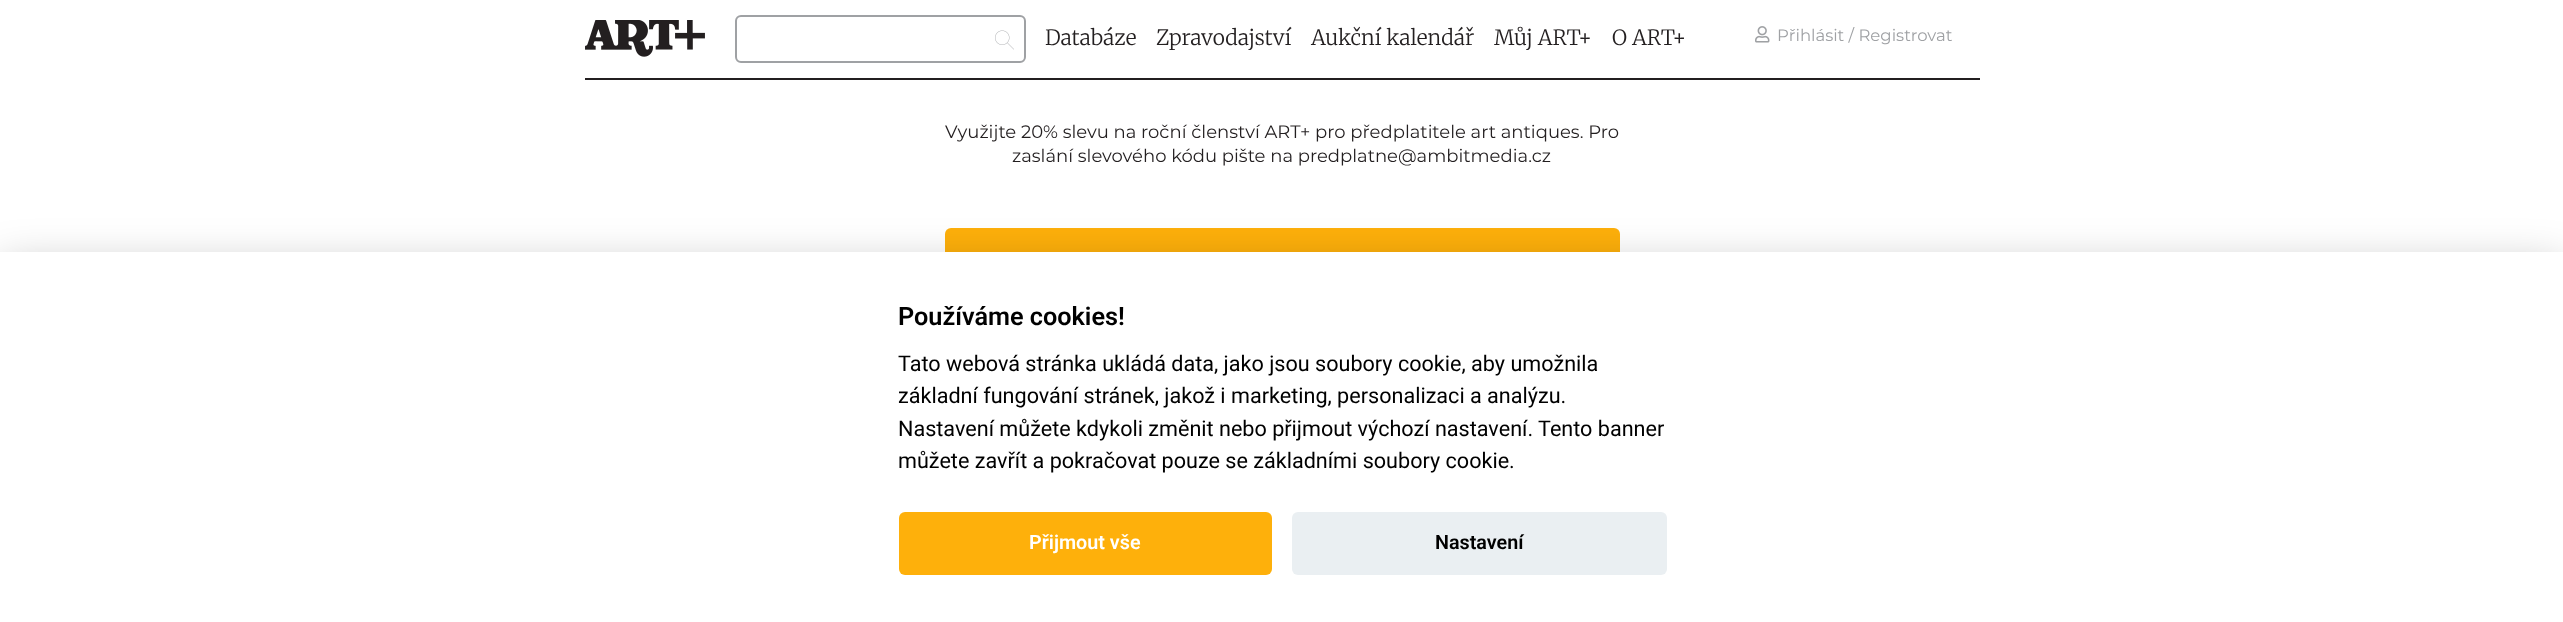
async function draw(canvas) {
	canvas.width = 2563;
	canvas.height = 622;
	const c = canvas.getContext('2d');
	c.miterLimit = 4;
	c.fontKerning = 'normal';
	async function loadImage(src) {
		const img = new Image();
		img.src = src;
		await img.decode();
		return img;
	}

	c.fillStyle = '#fff';
	c.fillRect(0, 0, 2563, 622);
	c.fillStyle = '#231f20';
	c.fillRect(585, 78, 1395, 2);
	c.drawImage(await loadImage('img1.png'), 585, 20, 120, 37);
	c.beginPath();
	c.roundRect(736, 16, 289, 46, 5);
	c.strokeStyle = '#9fa1a4';
	c.lineWidth = 2;
	c.stroke();
	c.drawImage(await loadImage('img2.png'), 995, 30, 19, 20);
	c.font = '300 21px Merriweather';
	for (const [text, x, y] of [
		['Databáze', 1045, 45],
		['Zpravodajství', 1156, 45],
		['Aukční kalendář', 1311, 45],
		['Můj ART+', 1494, 45],
		['O ART+', 1612, 45],
	]) {
		c.fillText(text, x, y);
	}
	c.drawImage(await loadImage('img3.png'), 1755, 26, 15, 17);
	c.font = '16.5px Montserrat';
	c.fillStyle = '#9fa1a4';
	c.fillText('Přihlásit / Registrovat', 1777, 41);
	c.font = '18px Montserrat';
	c.fillStyle = '#231f20';
	c.fillText('Využijte 20% slevu na roční členství ART+ pro předplatitele art antiques. Pro', 945, 138);
	c.fillText('zaslání slevového kódu pište na predplatne@ambitmedia.cz', 1012, 162);
	c.fillStyle = '#feb00b';
	c.beginPath();
	c.roundRect(945, 228, 675, 75, 6);
	c.fill();
	c.fillStyle = '#02020347';
	c.filter = 'blur(22.5px)';
	c.beginPath();
	c.rect(0, 267, 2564, 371);
	c.fill();
	c.filter = 'none';
	c.fillStyle = '#fff';
	c.fillRect(0, 252, 2563, 370);
	c.font = '600 25.25px Roboto';
	c.fillStyle = '#000';
	c.fillText('Používáme cookies!', 898, 325);
	c.font = '21.6px Roboto';
	for (const [text, x, y] of [
		['Tato webová stránka ukládá data, jako jsou soubory cookie, aby umožnila', 898, 371],
		['základní fungování stránek, jakož i marketing, personalizaci a analýzu.', 898, 403],
		['Nastavení můžete kdykoli změnit nebo přijmout výchozí nastavení. Tento banner', 898, 436],
		['můžete zavřít a pokračovat pouze se základními soubory cookie.', 898, 468],
	]) {
		c.fillText(text, x, y);
	}
	c.fillStyle = '#feb00b';
	c.beginPath();
	c.roundRect(899, 512, 373, 63, 6);
	c.fill();
	c.font = '600 19.75px Roboto';
	c.fillStyle = '#fff';
	c.fillText('Přijmout vše', 1029, 549);
	c.fillStyle = '#eaeff2';
	c.beginPath();
	c.roundRect(1292, 512, 375, 63, 6);
	c.fill();
	c.fillStyle = '#000';
	c.fillText('Nastavení', 1435, 549);
}

draw(document.querySelector('canvas'));
